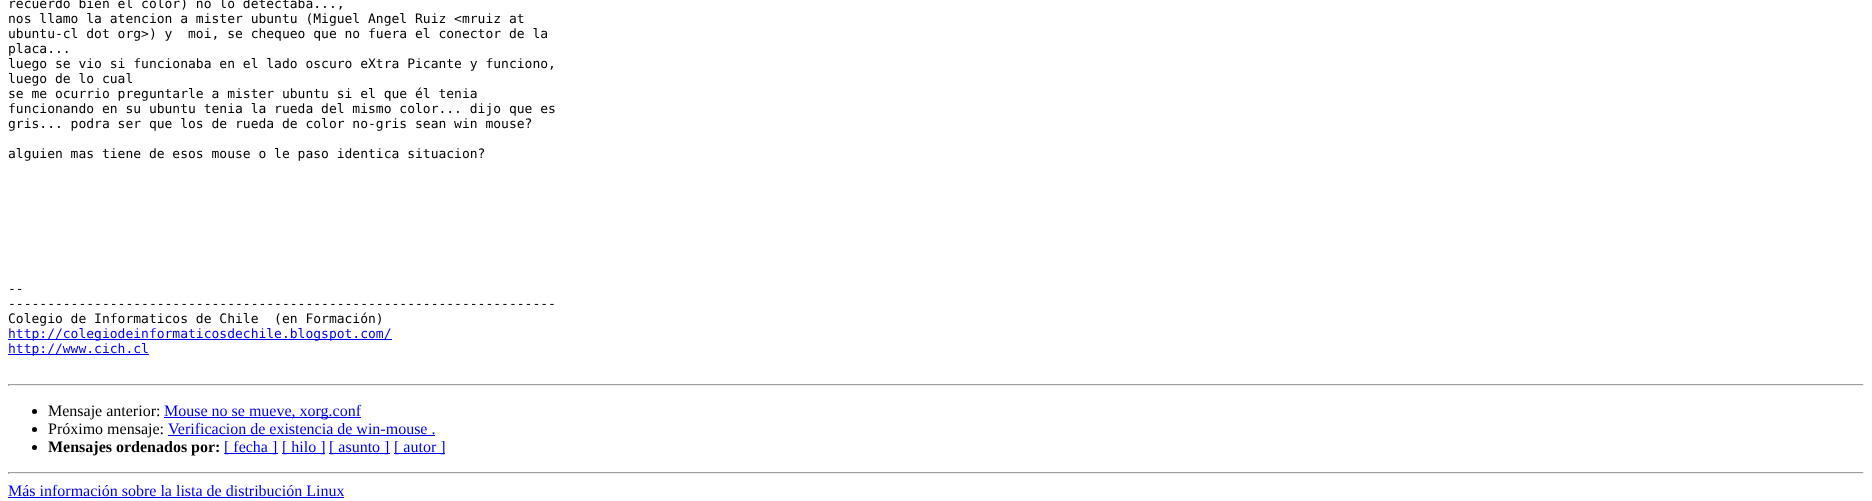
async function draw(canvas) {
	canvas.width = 1872;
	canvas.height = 501;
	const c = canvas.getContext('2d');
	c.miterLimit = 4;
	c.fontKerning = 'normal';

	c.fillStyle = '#fff';
	c.fillRect(0, 0, 1872, 501);
	c.font = '13px DejaVu Sans Mono';
	c.fillStyle = '#000';
	for (const [text, x, y] of [
		['recuerdo bien el color) no lo detectaba...,', 8, 8],
		['nos llamo la atencion a mister ubuntu (Miguel Angel Ruiz <mruiz at', 8, 23],
		['ubuntu-cl dot org>) y  moi, se chequeo que no fuera el conector de la', 8, 38],
		['placa...', 8, 53],
		['luego se vio si funcionaba en el lado oscuro eXtra Picante y funciono,', 8, 68],
		['luego de lo cual', 8, 83],
		['se me ocurrio preguntarle a mister ubuntu si el que él tenia', 8, 98],
		['funcionando en su ubuntu tenia la rueda del mismo color... dijo que es', 8, 113],
		['gris... podra ser que los de rueda de color no-gris sean win mouse?', 8, 128],
		['alguien mas tiene de esos mouse o le paso identica situacion?', 8, 158],
		['--', 8, 293],
		['----------------------------------------------------------------------', 8, 308],
		['Colegio de Informaticos de Chile  (en Formación)', 8, 323],
	]) {
		c.fillText(text, x, y);
	}
	c.fillStyle = '#00e';
	c.fillRect(8, 339, 384, 1);
	c.fillText('http://colegiodeinformaticosdechile.blogspot.com/', 8, 338);
	c.fillRect(8, 354, 141, 1);
	c.fillText('http://www.cich.cl', 8, 353);
	for (const [x, y, w, h, color] of [
		[8, 384, 1856, 1, '#9f9f9f'],
		[1863, 384, 1, 2, '#eee'],
		[8, 385, 1856, 1, '#eee'],
		[8, 384, 1, 2, '#9f9f9f'],
	]) {
		c.fillStyle = color;
		c.fillRect(x, y, w, h);
	}
	c.fillStyle = '#000';
	c.beginPath();
	c.arc(34.5, 411.5, 2.5, 0, 2 * Math.PI);
	c.fill();
	c.font = '16px Liberation Serif';
	c.fillText('Mensaje anterior:', 48, 416);
	c.fillStyle = '#00e';
	c.fillRect(164, 417, 197, 1);
	c.fillText('Mouse no se mueve, xorg.conf', 164, 416);
	c.fillStyle = '#000';
	c.beginPath();
	c.arc(34.5, 429.5, 2.5, 0, 2 * Math.PI);
	c.fill();
	c.fillText('Próximo mensaje:', 48, 434);
	c.fillStyle = '#00e';
	c.fillText('Verificacion de existencia de win-mouse .', 168, 434);
	c.fillRect(168, 435, 267, 1);
	c.fillStyle = '#000';
	c.beginPath();
	c.arc(34.5, 447.5, 2.5, 0, 2 * Math.PI);
	c.fill();
	c.font = 'bold 16px Liberation Serif';
	c.fillText('Mensajes ordenados por:', 48, 452);
	c.fillStyle = '#00e';
	c.fillRect(224, 453, 54, 1);
	c.font = '16px Liberation Serif';
	c.fillText('[ fecha ]', 224, 452);
	c.fillRect(282, 453, 43, 1);
	c.fillText('[ hilo ]', 282, 452);
	c.fillRect(329, 453, 61, 1);
	c.fillText('[ asunto ]', 329, 452);
	c.fillRect(394, 453, 51, 1);
	c.fillText('[ autor ]', 394, 452);
	for (const [x, y, w, h, color] of [
		[8, 472, 1856, 1, '#9f9f9f'],
		[1863, 472, 1, 2, '#eee'],
		[8, 473, 1856, 1, '#eee'],
		[8, 472, 1, 2, '#9f9f9f'],
	]) {
		c.fillStyle = color;
		c.fillRect(x, y, w, h);
	}
	c.fillStyle = '#00e';
	c.fillText('Más información sobre la lista de distribución Linux', 8, 496);
	c.fillRect(8, 497, 336, 1);
}

draw(document.querySelector('canvas'));
